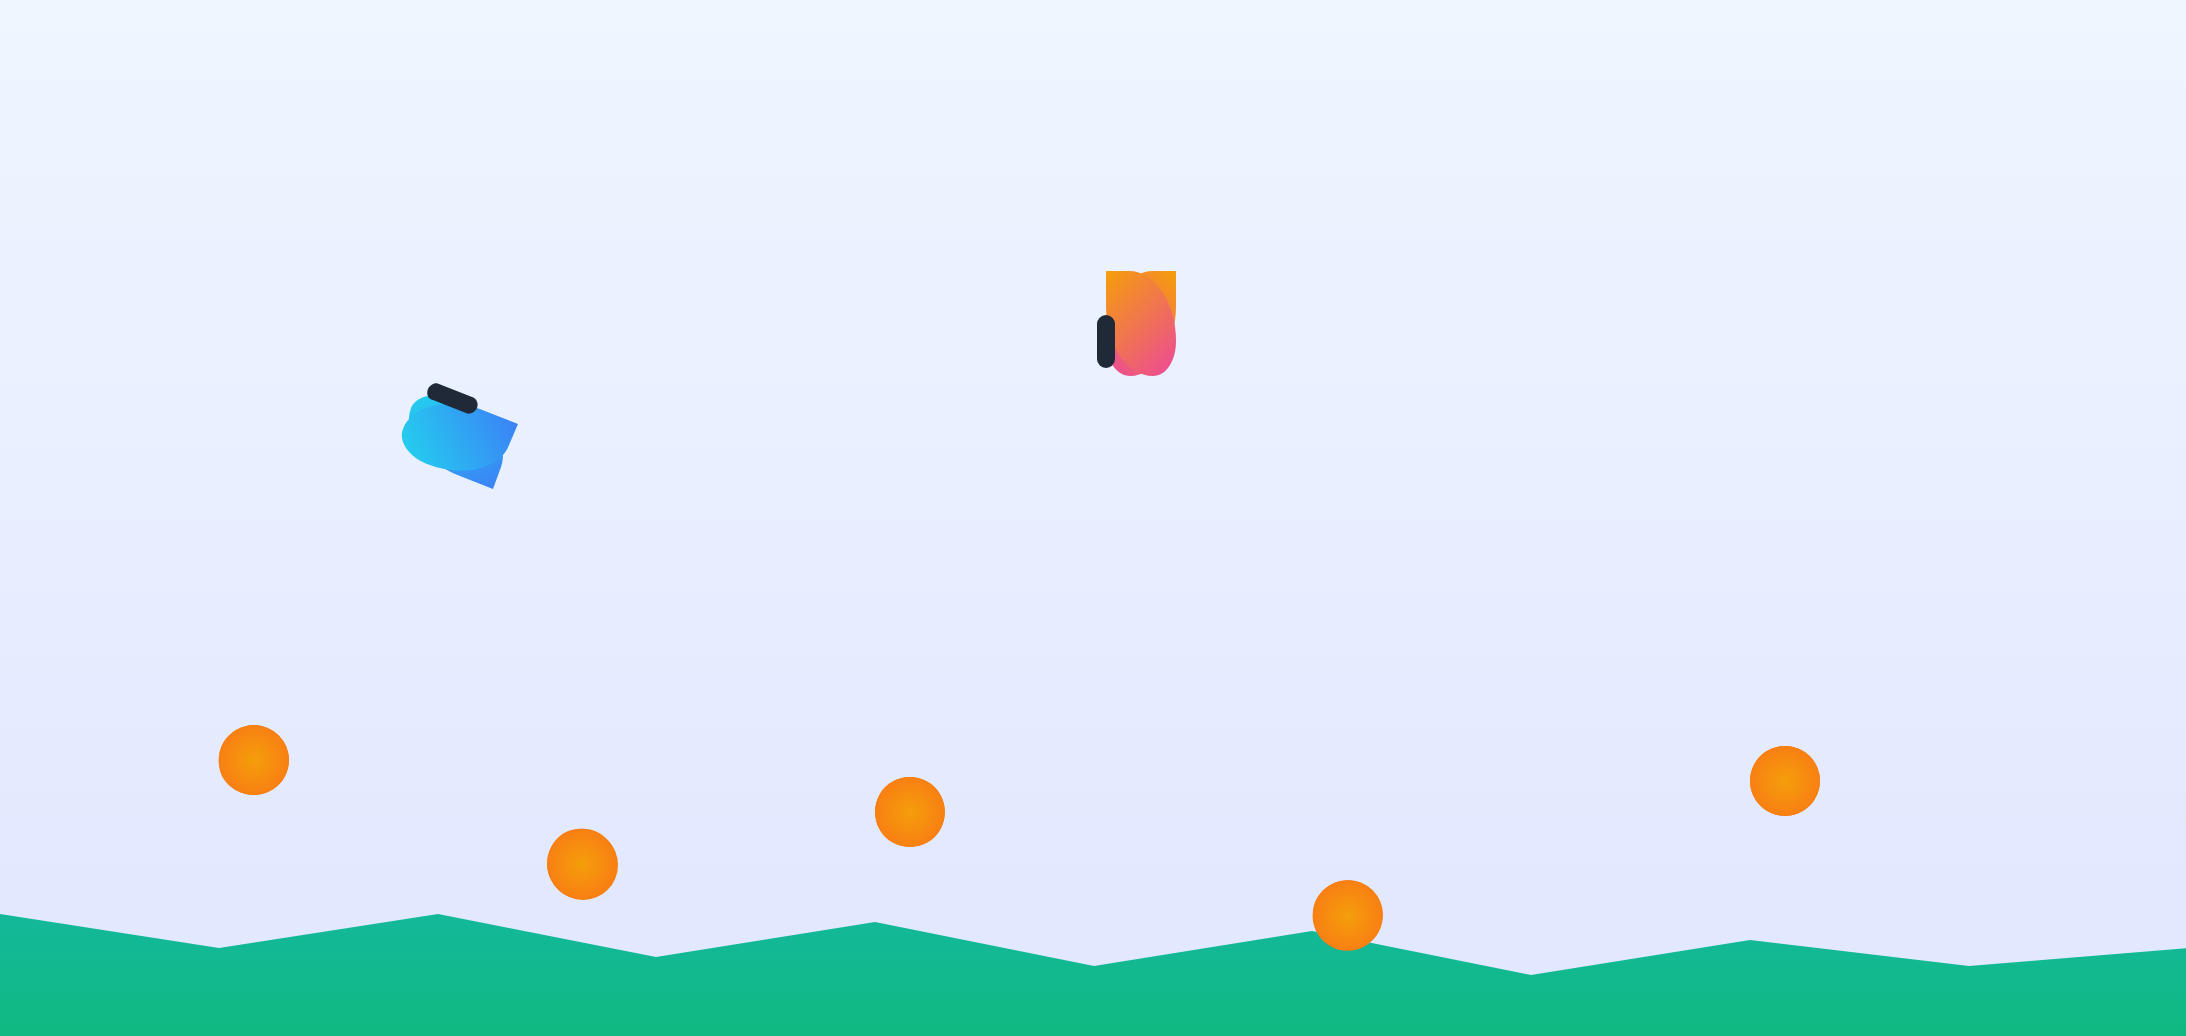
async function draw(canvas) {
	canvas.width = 2186;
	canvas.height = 1036;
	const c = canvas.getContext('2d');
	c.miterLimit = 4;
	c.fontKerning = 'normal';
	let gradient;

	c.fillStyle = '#fff';
	c.fillRect(0, 0, 2186, 1036);
	gradient = c.createLinearGradient(1094, 0, 1094, 1036);
	gradient.addColorStop(0, '#eff6ff');
	gradient.addColorStop(1, '#e0e7ff');
	c.fillStyle = gradient;
	c.fillRect(0, 0, 2186, 975);
	gradient = c.createLinearGradient(1185, 280, 1097, 368);
	gradient.addColorStop(0, '#f59e0b');
	gradient.addColorStop(1, '#ec4899');
	c.fillStyle = gradient;
	c.beginPath();
	c.moveTo(1176, 271);
	c.lineTo(1153, 271);
	c.bezierCurveTo(1127, 271, 1106, 303, 1106, 341);
	c.bezierCurveTo(1106, 361, 1117, 376, 1130, 376);
	c.bezierCurveTo(1155, 376, 1176, 345, 1176, 306);
	c.closePath();
	c.fill();
	gradient = c.createLinearGradient(1097, 280, 1185, 368);
	gradient.addColorStop(0, '#f59e0b');
	gradient.addColorStop(1, '#ec4899');
	c.fillStyle = gradient;
	c.beginPath();
	c.moveTo(1106, 271);
	c.lineTo(1129, 271);
	c.bezierCurveTo(1155, 271, 1176, 303, 1176, 341);
	c.bezierCurveTo(1176, 361, 1166, 376, 1153, 376);
	c.bezierCurveTo(1127, 376, 1106, 345, 1106, 306);
	c.closePath();
	c.fill();
	c.fillStyle = '#1f2937';
	c.beginPath();
	c.roundRect(1097, 315, 18, 53, 9);
	c.fill();
	gradient = c.createLinearGradient(481, 494, 431, 381);
	gradient.addColorStop(0, '#3b82f6');
	gradient.addColorStop(1, '#22d3ee');
	c.fillStyle = gradient;
	c.beginPath();
	c.moveTo(493, 489);
	c.lineTo(501, 467);
	c.bezierCurveTo(510, 443, 489, 412, 452, 398);
	c.bezierCurveTo(434, 392, 416, 396, 411, 408);
	c.bezierCurveTo(402, 432, 424, 462, 460, 476);
	c.closePath();
	c.fill();
	gradient = c.createLinearGradient(513, 412, 400, 463);
	gradient.addColorStop(0, '#3b82f6');
	gradient.addColorStop(1, '#22d3ee');
	c.fillStyle = gradient;
	c.beginPath();
	c.moveTo(518, 424);
	c.lineTo(509, 445);
	c.bezierCurveTo(500, 469, 463, 478, 427, 464);
	c.bezierCurveTo(409, 457, 398, 441, 403, 429);
	c.bezierCurveTo(412, 405, 449, 397, 485, 411);
	c.closePath();
	c.fill();
	c.fillStyle = '#1f2937';
	c.beginPath();
	c.moveTo(477, 408);
	c.bezierCurveTo(475, 412, 470, 415, 466, 413);
	c.lineTo(433, 400);
	c.bezierCurveTo(428, 399, 426, 394, 428, 389);
	c.bezierCurveTo(430, 385, 435, 382, 439, 384);
	c.lineTo(472, 397);
	c.bezierCurveTo(476, 398, 479, 403, 477, 408);
	c.closePath();
	c.fill();
	gradient = c.createRadialGradient(254, 760, 0, 254, 760, 49);
	gradient.addColorStop(0, '#f59e0b');
	gradient.addColorStop(1, '#f97316');
	c.fillStyle = gradient;
	c.beginPath();
	c.arc(254, 760, 35, 0, 2 * Math.PI);
	c.fill();
	c.beginPath();
	c.moveTo(284, 743);
	c.bezierCurveTo(294, 759, 288, 781, 271, 790);
	c.bezierCurveTo(255, 800, 233, 794, 223, 778);
	c.bezierCurveTo(214, 761, 220, 740, 236, 730);
	c.bezierCurveTo(253, 720, 274, 726, 284, 743);
	c.closePath();
	c.fill();
	c.beginPath();
	c.moveTo(284, 778);
	c.bezierCurveTo(274, 794, 253, 800, 236, 790);
	c.bezierCurveTo(220, 781, 214, 759, 223, 743);
	c.bezierCurveTo(233, 726, 255, 720, 271, 730);
	c.bezierCurveTo(288, 740, 294, 761, 284, 778);
	c.closePath();
	c.fill();
	gradient = c.createRadialGradient(910, 812, 0, 910, 812, 49);
	gradient.addColorStop(0, '#f59e0b');
	gradient.addColorStop(1, '#f97316');
	c.fillStyle = gradient;
	c.beginPath();
	c.moveTo(940, 794);
	c.bezierCurveTo(950, 811, 944, 833, 928, 842);
	c.bezierCurveTo(911, 852, 889, 846, 880, 830);
	c.bezierCurveTo(870, 813, 876, 791, 892, 782);
	c.bezierCurveTo(909, 772, 931, 778, 940, 794);
	c.closePath();
	c.fill();
	c.beginPath();
	c.moveTo(940, 830);
	c.bezierCurveTo(931, 846, 909, 852, 892, 842);
	c.bezierCurveTo(876, 833, 870, 811, 880, 794);
	c.bezierCurveTo(889, 778, 911, 772, 927, 782);
	c.bezierCurveTo(944, 791, 950, 813, 940, 830);
	c.closePath();
	c.fill();
	gradient = c.createRadialGradient(1785, 781, 0, 1785, 781, 49);
	gradient.addColorStop(0, '#f59e0b');
	gradient.addColorStop(1, '#f97316');
	c.fillStyle = gradient;
	c.beginPath();
	c.arc(1785, 781, 35, 0, 2 * Math.PI);
	c.fill();
	c.beginPath();
	c.moveTo(1815, 763);
	c.bezierCurveTo(1825, 780, 1819, 802, 1802, 811);
	c.bezierCurveTo(1786, 821, 1764, 815, 1755, 798);
	c.bezierCurveTo(1745, 782, 1751, 760, 1768, 751);
	c.bezierCurveTo(1784, 741, 1806, 747, 1815, 763);
	c.closePath();
	c.fill();
	c.beginPath();
	c.moveTo(1815, 798);
	c.bezierCurveTo(1806, 815, 1784, 821, 1768, 811);
	c.bezierCurveTo(1751, 802, 1745, 780, 1755, 763);
	c.bezierCurveTo(1764, 747, 1786, 741, 1802, 751);
	c.bezierCurveTo(1819, 760, 1825, 782, 1815, 798);
	c.closePath();
	c.fill();
	gradient = c.createRadialGradient(583, 865, 0, 583, 865, 49);
	gradient.addColorStop(0, '#f59e0b');
	gradient.addColorStop(1, '#f97316');
	c.fillStyle = gradient;
	c.beginPath();
	c.arc(583, 865, 35, 0, 2 * Math.PI);
	c.fill();
	gradient = c.createRadialGradient(582, 864, 0, 582, 864, 49);
	gradient.addColorStop(0, '#f59e0b');
	gradient.addColorStop(1, '#f97316');
	c.fillStyle = gradient;
	c.beginPath();
	c.moveTo(612, 846);
	c.bezierCurveTo(622, 863, 616, 884, 599, 894);
	c.bezierCurveTo(583, 904, 561, 898, 552, 881);
	c.bezierCurveTo(542, 865, 548, 843, 564, 833);
	c.bezierCurveTo(581, 824, 603, 830, 612, 846);
	c.closePath();
	c.fill();
	c.beginPath();
	c.moveTo(612, 881);
	c.bezierCurveTo(603, 898, 581, 904, 564, 894);
	c.bezierCurveTo(548, 884, 542, 863, 552, 846);
	c.bezierCurveTo(561, 830, 583, 824, 599, 833);
	c.bezierCurveTo(616, 843, 622, 865, 612, 881);
	c.closePath();
	c.fill();
	gradient = c.createLinearGradient(1094, 1036, 1094, 861);
	gradient.addColorStop(0, '#10b981');
	gradient.addColorStop(1, '#14b8a6');
	c.fillStyle = gradient;
	c.beginPath();
	c.moveTo(0, 1036);
	c.lineTo(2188, 1036);
	c.lineTo(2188, 948);
	c.lineTo(1969, 966);
	c.lineTo(1750, 940);
	c.lineTo(1531, 975);
	c.lineTo(1312, 931);
	c.lineTo(1094, 966);
	c.lineTo(875, 922);
	c.lineTo(656, 957);
	c.lineTo(438, 914);
	c.lineTo(219, 948);
	c.lineTo(0, 914);
	c.closePath();
	c.fill();
	gradient = c.createRadialGradient(1348, 915, 0, 1348, 915, 49);
	gradient.addColorStop(0, '#f59e0b');
	gradient.addColorStop(1, '#f97316');
	c.fillStyle = gradient;
	c.beginPath();
	c.arc(1348, 915, 35, 0, 2 * Math.PI);
	c.fill();
	gradient = c.createRadialGradient(1348, 916, 0, 1348, 916, 49);
	gradient.addColorStop(0, '#f59e0b');
	gradient.addColorStop(1, '#f97316');
	c.fillStyle = gradient;
	c.beginPath();
	c.moveTo(1378, 933);
	c.bezierCurveTo(1368, 950, 1347, 956, 1330, 946);
	c.bezierCurveTo(1313, 936, 1308, 915, 1317, 898);
	c.bezierCurveTo(1327, 881, 1348, 876, 1365, 885);
	c.bezierCurveTo(1382, 895, 1387, 916, 1378, 933);
	c.closePath();
	c.fill();
}

draw(document.querySelector('canvas'));
